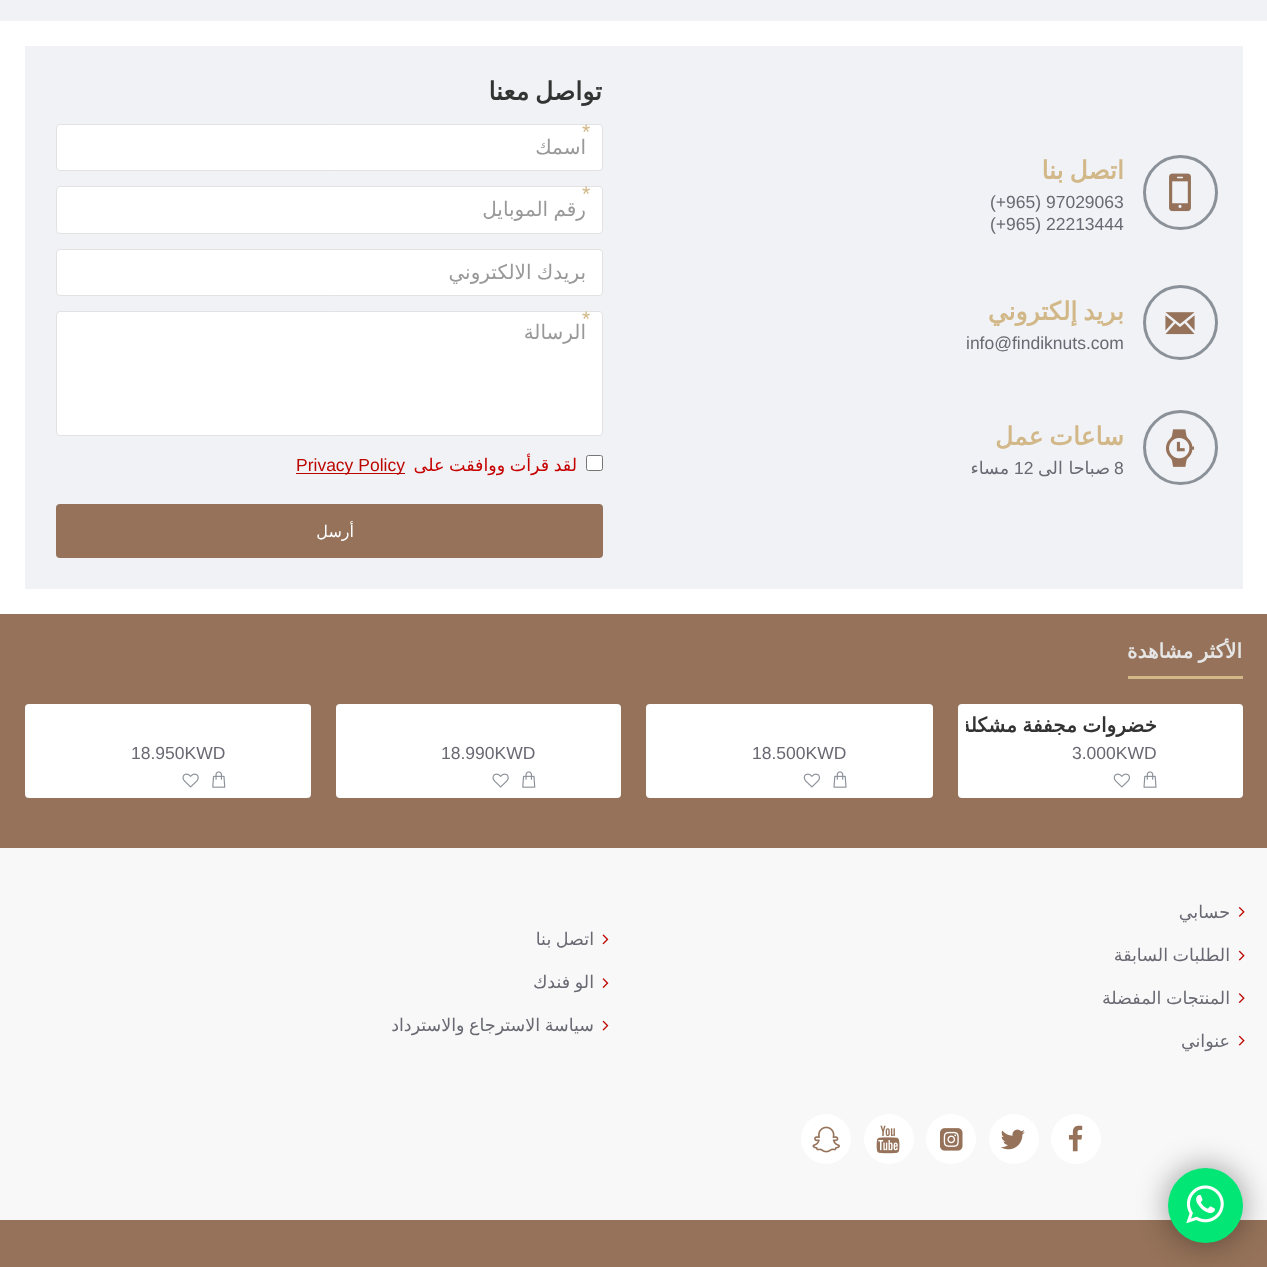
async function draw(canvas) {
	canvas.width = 1267;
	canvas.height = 1267;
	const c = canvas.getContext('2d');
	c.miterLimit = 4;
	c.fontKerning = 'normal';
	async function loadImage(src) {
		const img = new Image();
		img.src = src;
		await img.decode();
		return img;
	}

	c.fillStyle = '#fff';
	c.fillRect(0, 0, 1267, 1267);
	c.fillStyle = '#f0f2f5';
	c.fillRect(0, 0, 1267, 21);
	c.fillRect(25, 46, 1218, 543);
	c.beginPath();
	c.arc(1180.5, 192.5, 36, 0, 2 * Math.PI);
	c.strokeStyle = '#8b9198';
	c.lineWidth = 3;
	c.stroke();
	c.drawImage(await loadImage('img1.png'), 1169, 173, 22, 39);
	c.wordSpacing = '-2px';
	c.direction = 'rtl';
	c.font = 'bold 25px DejaVu Sans';
	c.fillStyle = '#d2b888';
	c.fillText('اتصل بنا', 1124, 179);
	c.wordSpacing = '0px';
	c.direction = 'ltr';
	c.font = '17.5px Liberation Sans';
	c.fillStyle = '#696973';
	c.fillText('(+965) 97029063', 990, 208);
	c.fillText('(+965) 22213444', 990, 230);
	c.beginPath();
	c.arc(1180.5, 322.5, 36, 0, 2 * Math.PI);
	c.stroke();
	c.drawImage(await loadImage('img2.png'), 1165, 312, 30, 23);
	c.wordSpacing = '-2px';
	c.direction = 'rtl';
	c.font = 'bold 25px DejaVu Sans';
	c.fillStyle = '#d2b888';
	c.fillText('بريد إلكتروني', 1124, 320);
	c.wordSpacing = '0px';
	c.direction = 'ltr';
	c.font = '17.5px Liberation Sans';
	c.fillStyle = '#696973';
	c.fillText('info@findiknuts.com', 966, 349);
	c.beginPath();
	c.arc(1180.5, 447.5, 36, 0, 2 * Math.PI);
	c.stroke();
	c.drawImage(await loadImage('img3.png'), 1165, 429, 30, 38);
	c.wordSpacing = '-2px';
	c.direction = 'rtl';
	c.font = 'bold 25px DejaVu Sans';
	c.fillStyle = '#d2b888';
	c.fillText('ساعات عمل', 1124, 445);
	c.wordSpacing = '0px';
	c.direction = 'ltr';
	c.font = '17.5px Liberation Sans';
	c.fillStyle = '#696973';
	c.fillText('8', 1114, 474);
	c.direction = 'rtl';
	c.font = '17.5px DejaVu Sans';
	c.fillText('صباحا الى', 1110, 474);
	c.direction = 'ltr';
	c.font = '17.5px Liberation Sans';
	c.fillText('12', 1014, 474);
	c.direction = 'rtl';
	c.font = '17.5px DejaVu Sans';
	c.fillText('مساء', 1009, 474);
	c.wordSpacing = '-2px';
	c.font = 'bold 25px DejaVu Sans';
	c.fillStyle = '#333';
	c.fillText('تواصل معنا', 602, 100);
	c.fillStyle = '#fff';
	c.beginPath();
	c.roundRect(56.5, 124.5, 546, 46, 3.5);
	c.fill();
	c.strokeStyle = '#e2e2e2';
	c.lineWidth = 1;
	c.stroke();
	c.wordSpacing = '0px';
	c.direction = 'ltr';
	c.font = '21px Liberation Sans';
	c.fillStyle = '#d2b888';
	c.fillText('*', 582, 139);
	c.direction = 'rtl';
	c.font = '20px DejaVu Sans';
	c.fillStyle = '#999';
	c.fillText('اسمك', 586, 154);
	c.fillStyle = '#fff';
	c.beginPath();
	c.roundRect(56.5, 186.5, 546, 47, 3.5);
	c.fill();
	c.stroke();
	c.direction = 'ltr';
	c.font = '21px Liberation Sans';
	c.fillStyle = '#d2b888';
	c.fillText('*', 582, 201);
	c.wordSpacing = '-1px';
	c.direction = 'rtl';
	c.font = '20px DejaVu Sans';
	c.fillStyle = '#999';
	c.fillText('رقم الموبايل', 586, 216);
	c.fillStyle = '#fff';
	c.beginPath();
	c.roundRect(56.5, 249.5, 546, 46, 3.5);
	c.fill();
	c.stroke();
	c.fillStyle = '#999';
	c.fillText('بريدك الالكتروني', 586, 279);
	c.fillStyle = '#fff';
	c.beginPath();
	c.roundRect(56.5, 311.5, 546, 124, 3.5);
	c.fill();
	c.stroke();
	c.wordSpacing = '0px';
	c.direction = 'ltr';
	c.font = '21px Liberation Sans';
	c.fillStyle = '#d2b888';
	c.fillText('*', 582, 326);
	c.direction = 'rtl';
	c.font = '20px DejaVu Sans';
	c.fillStyle = '#999';
	c.fillText('الرسالة', 586, 339);
	c.fillStyle = '#fff';
	c.beginPath();
	c.roundRect(586.5, 455.5, 16, 15, 2);
	c.fill();
	c.strokeStyle = '#767676';
	c.stroke();
	c.wordSpacing = '-1px';
	c.font = '17.5px DejaVu Sans';
	c.fillStyle = '#c60000';
	c.fillText('لقد قرأت ووافقت على', 577, 471);
	c.fillStyle = '#bc0700';
	c.fillRect(296, 473, 109, 1);
	c.wordSpacing = '0px';
	c.direction = 'ltr';
	c.font = '17.5px Liberation Sans';
	c.fillText('Privacy Policy', 296, 471);
	c.fillStyle = '#957259';
	c.beginPath();
	c.roundRect(56, 504, 547, 54, 4);
	c.fill();
	c.letterSpacing = '1px';
	c.direction = 'rtl';
	c.font = '16px DejaVu Sans';
	c.fillStyle = '#fff';
	c.fillText('أرسل', 354, 537);
	for (const [x, y, w, h, color] of [
		[0, 848, 1267, 372, '#f8f8f8'],
		[0, 614, 1267, 234, '#957259'],
		[1128, 676, 115, 3, '#d2b888'],
	]) {
		c.fillStyle = color;
		c.fillRect(x, y, w, h);
	}
	c.letterSpacing = '0px';
	c.wordSpacing = '-1px';
	c.font = 'bold 20px DejaVu Sans';
	c.fillStyle = '#e6e6e6';
	c.fillText('الأكثر مشاهدة', 1242, 658);
	c.fillStyle = '#fff';
	c.beginPath();
	c.roundRect(958, 704, 285, 94, 4);
	c.fill();
	c.save();
	c.beginPath();
	c.rect(966, 713, 190, 26);
	c.clip();
	c.fillStyle = '#333';
	c.fillText('خضروات مجففة مشكلة', 1157, 732);
	c.restore();
	c.wordSpacing = '0px';
	c.direction = 'ltr';
	c.font = '17.5px Liberation Sans';
	c.fillStyle = '#696973';
	c.fillText('3.000KWD', 1072, 759);
	c.drawImage(await loadImage('img4.png'), 1143, 771, 14, 17);
	c.drawImage(await loadImage('img5.png'), 1113, 773, 17, 15);
	c.fillStyle = '#fff';
	c.beginPath();
	c.roundRect(646, 704, 287, 94, 4);
	c.fill();
	c.fillStyle = '#696973';
	c.fillText('18.500KWD', 752, 759);
	c.drawImage(await loadImage('img4.png'), 833, 771, 14, 17);
	c.drawImage(await loadImage('img5.png'), 803, 773, 17, 15);
	c.fillStyle = '#fff';
	c.beginPath();
	c.roundRect(336, 704, 285, 94, 4);
	c.fill();
	c.fillStyle = '#696973';
	c.fillText('18.990KWD', 441, 759);
	c.drawImage(await loadImage('img6.png'), 522, 771, 14, 17);
	c.drawImage(await loadImage('img7.png'), 492, 773, 17, 15);
	c.fillStyle = '#fff';
	c.beginPath();
	c.roundRect(25, 704, 286, 94, 4);
	c.fill();
	c.fillStyle = '#696973';
	c.fillText('18.950KWD', 131, 759);
	c.drawImage(await loadImage('img6.png'), 212, 771, 14, 17);
	c.drawImage(await loadImage('img7.png'), 182, 773, 17, 15);
	c.drawImage(await loadImage('img8.png'), 1238, 907, 7, 10);
	c.direction = 'rtl';
	c.font = '17.5px DejaVu Sans';
	c.fillText('حسابي', 1230, 918);
	c.drawImage(await loadImage('img9.png'), 1238, 950, 7, 11);
	c.wordSpacing = '-1px';
	c.fillText('الطلبات السابقة', 1230, 961);
	c.drawImage(await loadImage('img10.png'), 1238, 993, 7, 10);
	c.fillText('المنتجات المفضلة', 1230, 1004);
	c.drawImage(await loadImage('img9.png'), 1238, 1035, 7, 11);
	c.wordSpacing = '0px';
	c.fillText('عنواني', 1230, 1047);
	c.drawImage(await loadImage('img11.png'), 602, 934, 7, 11);
	c.wordSpacing = '-1px';
	c.fillText('اتصل بنا', 594, 945);
	c.drawImage(await loadImage('img12.png'), 602, 978, 7, 10);
	c.fillText('الو فندك', 594, 988);
	c.drawImage(await loadImage('img13.png'), 602, 1020, 7, 11);
	c.fillText('سياسة الاسترجاع والاسترداد', 594, 1031);
	c.fillStyle = '#fff';
	c.beginPath();
	c.arc(1076, 1139, 25, 0, 2 * Math.PI);
	c.fill();
	c.drawImage(await loadImage('img14.png'), 1068, 1125, 15, 27);
	c.beginPath();
	c.arc(1014, 1139, 25, 0, 2 * Math.PI);
	c.fill();
	c.drawImage(await loadImage('img15.png'), 1000, 1129, 25, 21);
	c.beginPath();
	c.arc(951, 1139, 25, 0, 2 * Math.PI);
	c.fill();
	c.drawImage(await loadImage('img16.png'), 940, 1128, 23, 23);
	c.beginPath();
	c.arc(889, 1139, 25, 0, 2 * Math.PI);
	c.fill();
	c.drawImage(await loadImage('img17.png'), 876, 1125, 24, 29);
	c.beginPath();
	c.arc(826, 1139, 25, 0, 2 * Math.PI);
	c.fill();
	c.drawImage(await loadImage('img18.png'), 812, 1126, 28, 27);
	c.fillStyle = '#957259';
	c.fillRect(0, 1220, 1267, 47);
	c.fillStyle = '#00000066';
	c.filter = 'blur(15.5px)';
	c.beginPath();
	c.roundRect(1168, 1168, 75, 75, 37.5);
	c.fill();
	c.filter = 'none';
	c.fillStyle = '#01e675';
	c.beginPath();
	c.arc(1205.5, 1205.5, 37.5, 0, 2 * Math.PI);
	c.fill();
	c.drawImage(await loadImage('img19.png'), 1186, 1185, 38, 39);
}

draw(document.querySelector('canvas'));
